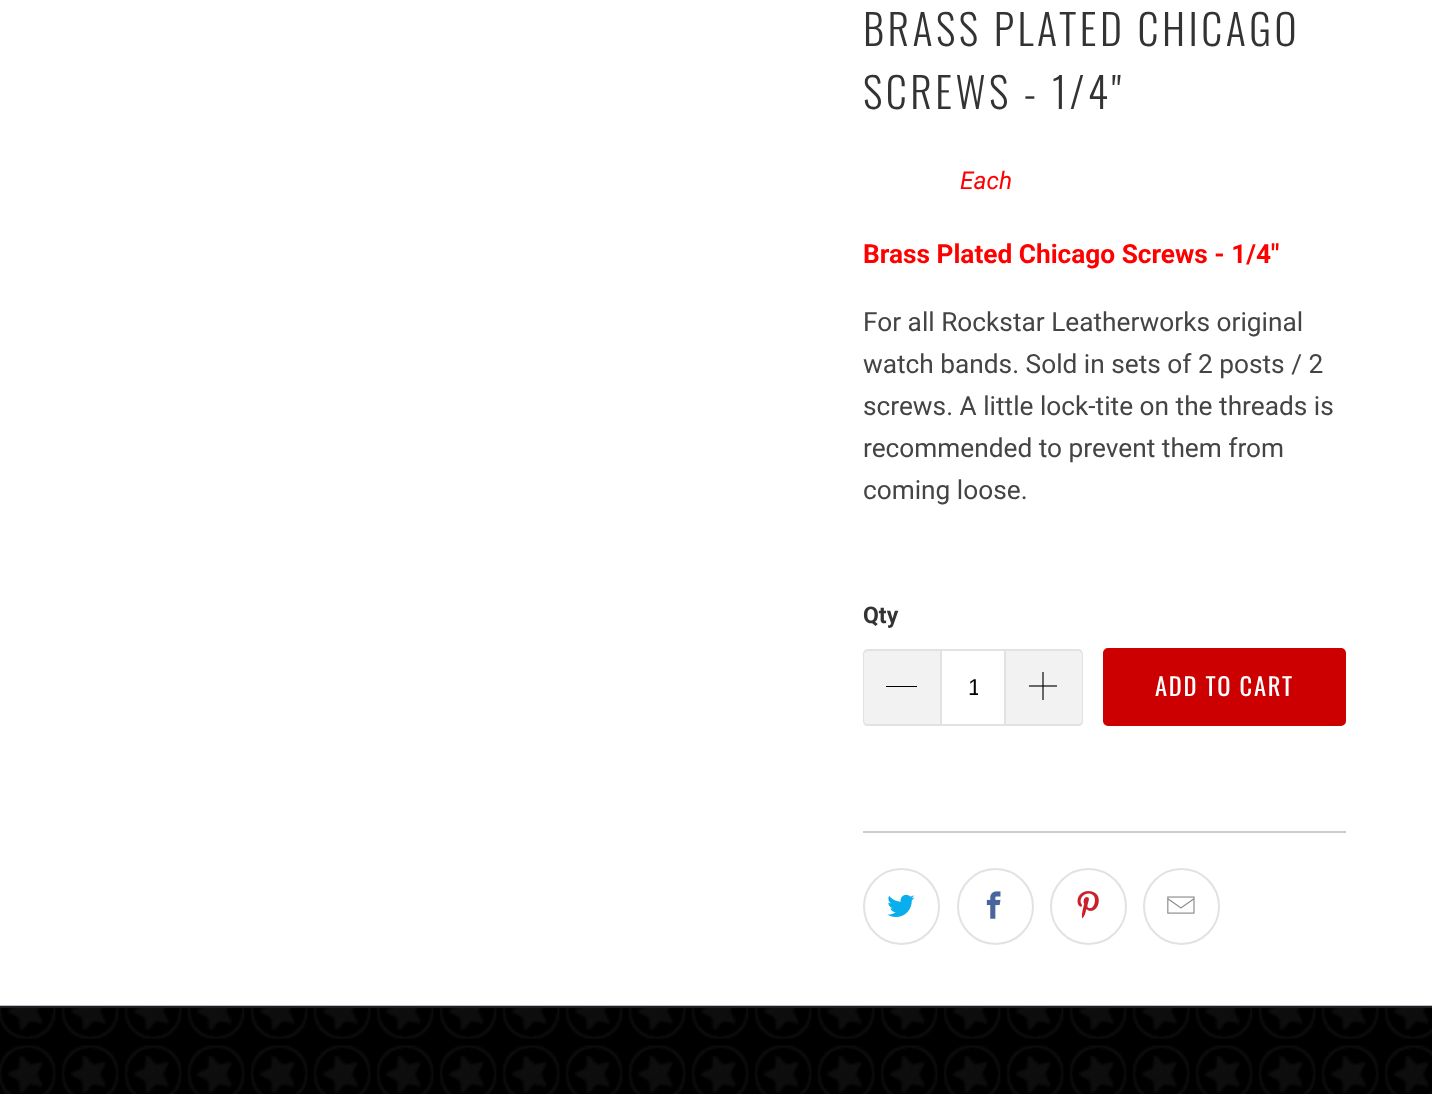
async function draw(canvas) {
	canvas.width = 1432;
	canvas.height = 1094;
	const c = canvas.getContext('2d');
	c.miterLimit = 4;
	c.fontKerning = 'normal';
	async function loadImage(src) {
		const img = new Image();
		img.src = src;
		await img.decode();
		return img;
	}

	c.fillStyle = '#fff';
	c.fillRect(0, 0, 1432, 1094);
	c.letterSpacing = '3.5px';
	c.font = '300 42px Oswald';
	c.fillStyle = '#333';
	c.fillText('BRASS PLATED CHICAGO', 863, 46);
	c.fillText('SCREWS - 1/4"', 863, 109);
	c.letterSpacing = '0px';
	c.font = 'italic 24.5px Roboto';
	c.fillStyle = '#f00';
	c.fillText('Each', 960, 189);
	c.font = 'bold 26.25px Roboto';
	c.fillText('Brass Plated Chicago Screws - 1/4"', 863, 263);
	c.font = '26.25px Roboto';
	c.fillStyle = '#444';
	for (const [text, x, y] of [
		['For all Rockstar Leatherworks original', 863, 331],
		['watch bands. Sold in sets of 2 posts / 2', 863, 373],
		['screws. A little lock-tite on the threads is', 863, 415],
		['recommended to prevent them from', 863, 457],
		['coming loose.', 863, 499],
	]) {
		c.fillText(text, x, y);
	}
	c.font = 'bold 23px Roboto';
	c.fillStyle = '#333';
	c.fillText('Qty', 863, 623);
	c.fillStyle = '#f2f2f2';
	c.beginPath();
	c.roundRect(863, 649, 77, 77, [5, 0, 0, 5]);
	c.fill();
	c.fillStyle = '#e2e2e2';
	c.beginPath();
	c.moveTo(868, 649);
	c.lineTo(940, 649);
	c.lineTo(940, 726);
	c.lineTo(868, 726);
	c.bezierCurveTo(865, 726, 863, 724, 863, 721);
	c.lineTo(863, 654);
	c.bezierCurveTo(863, 652, 865, 649, 868, 649);
	c.closePath();
	c.moveTo(868, 651);
	c.lineTo(940, 651);
	c.lineTo(940, 724);
	c.lineTo(868, 724);
	c.bezierCurveTo(866, 724, 864, 723, 864, 721);
	c.lineTo(864, 654);
	c.bezierCurveTo(864, 653, 866, 651, 868, 651);
	c.closePath();
	c.fill('evenodd');
	c.fillStyle = '#000';
	c.fillRect(886, 686, 31, 1);
	c.strokeStyle = '#e2e2e2';
	c.lineWidth = 2;
	c.strokeRect(941, 650, 64, 75);
	c.save();
	c.beginPath();
	c.rect(968, 674, 10, 26);
	c.clip();
	c.font = '23px Liberation Sans';
	c.fillText('1', 968, 695);
	c.restore();
	c.fillStyle = '#f2f2f2';
	c.beginPath();
	c.roundRect(1006, 649, 77, 77, [0, 5, 5, 0]);
	c.fill();
	c.fillStyle = '#e2e2e2';
	c.beginPath();
	c.moveTo(1006, 649);
	c.lineTo(1078, 649);
	c.bezierCurveTo(1081, 649, 1083, 652, 1083, 654);
	c.lineTo(1083, 721);
	c.bezierCurveTo(1083, 724, 1081, 726, 1078, 726);
	c.lineTo(1006, 726);
	c.closePath();
	c.moveTo(1006, 651);
	c.lineTo(1078, 651);
	c.bezierCurveTo(1080, 651, 1082, 653, 1082, 654);
	c.lineTo(1082, 721);
	c.bezierCurveTo(1082, 723, 1080, 724, 1078, 724);
	c.lineTo(1006, 724);
	c.closePath();
	c.fill('evenodd');
	c.drawImage(await loadImage('img1.png'), 1029, 672, 28, 28);
	c.fillStyle = '#c00';
	c.beginPath();
	c.roundRect(1104, 649, 241, 76, 4);
	c.fill();
	c.strokeStyle = '#c00';
	c.stroke();
	c.letterSpacing = '1.75px';
	c.font = '24.5px Oswald';
	c.fillStyle = '#fff';
	c.fillText('ADD TO CART', 1155, 696);
	c.fillStyle = '#ccc';
	c.fillRect(863, 831, 483, 2);
	c.beginPath();
	c.arc(901.5, 906.5, 37.5, 0, 2 * Math.PI);
	c.strokeStyle = '#e2e2e2';
	c.stroke();
	c.drawImage(await loadImage('img2.png'), 887, 894, 28, 23);
	c.beginPath();
	c.arc(995.5, 906.5, 37.5, 0, 2 * Math.PI);
	c.stroke();
	c.drawImage(await loadImage('img3.png'), 986, 891, 15, 28);
	c.beginPath();
	c.arc(1088.5, 906.5, 37.5, 0, 2 * Math.PI);
	c.stroke();
	c.drawImage(await loadImage('img4.png'), 1077, 891, 22, 28);
	c.beginPath();
	c.arc(1181.5, 906.5, 37.5, 0, 2 * Math.PI);
	c.stroke();
	c.drawImage(await loadImage('img5.png'), 1167, 896, 28, 18);
	c.drawImage(await loadImage('img6.png'), 0, 1005, 1432, 89);
	c.fillStyle = '#1b1f23';
	c.fillRect(0, 1006, 1432, 2);
}

draw(document.querySelector('canvas'));
